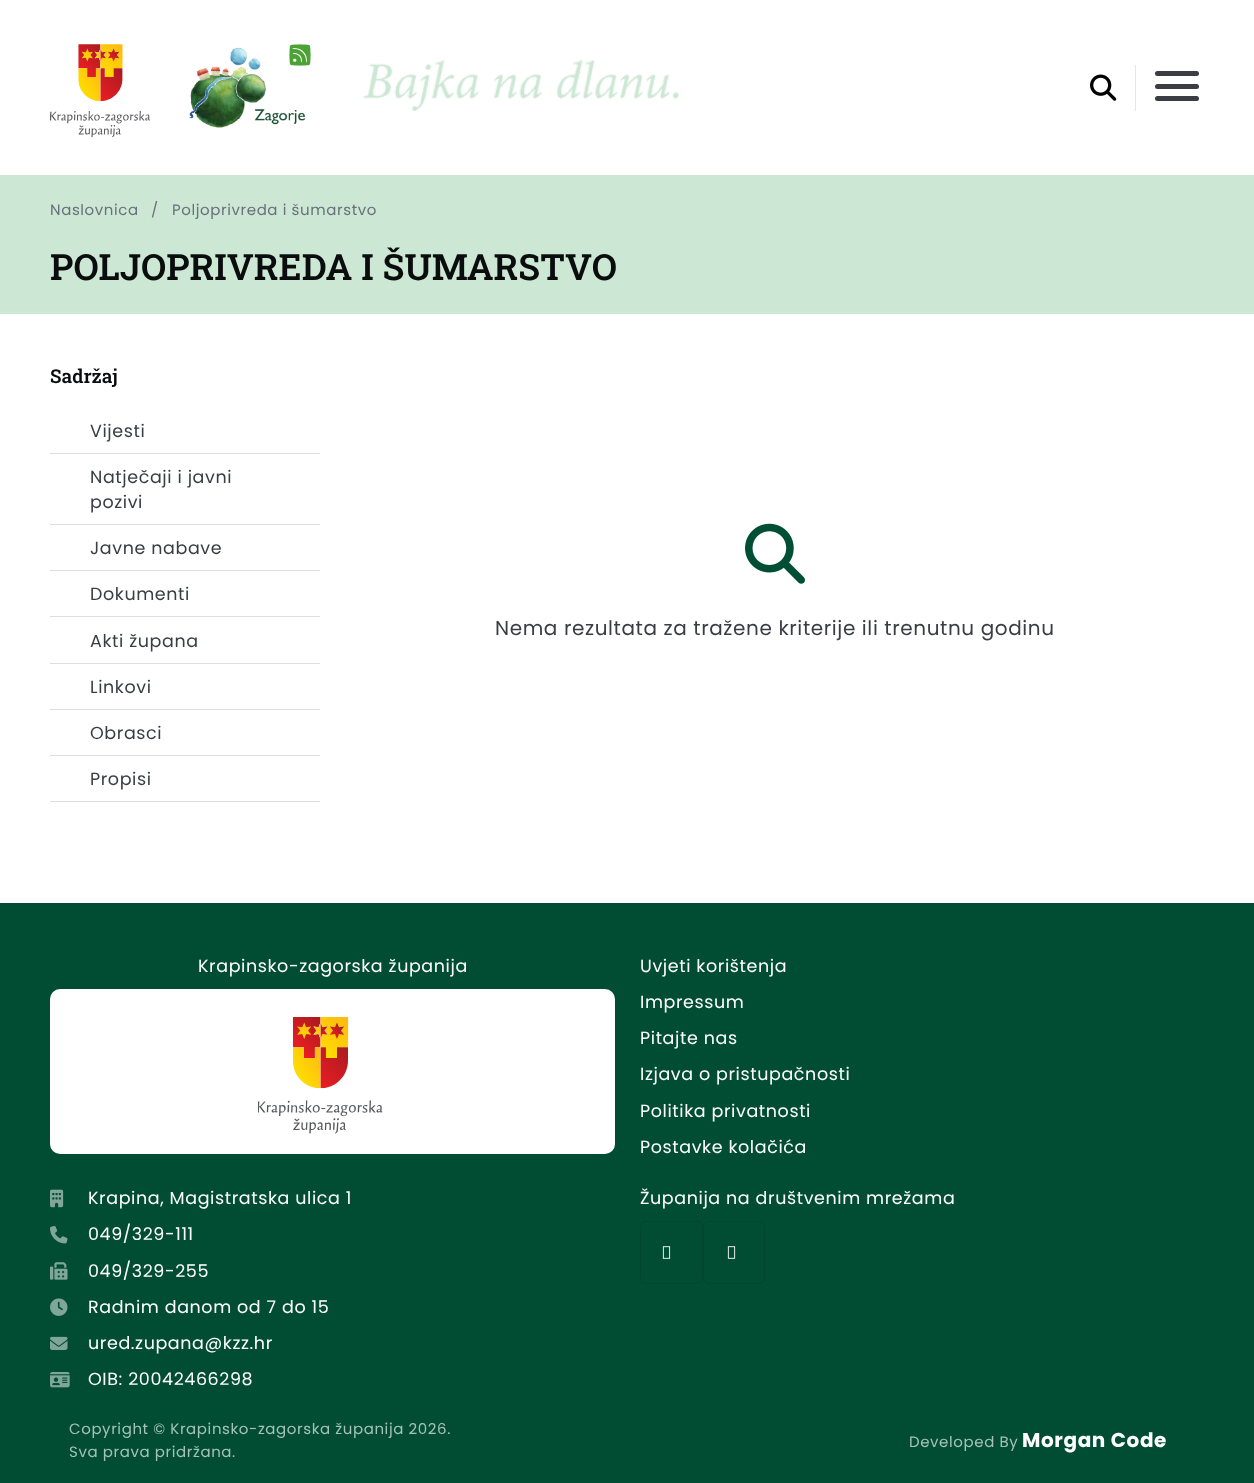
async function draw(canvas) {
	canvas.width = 1254;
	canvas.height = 1483;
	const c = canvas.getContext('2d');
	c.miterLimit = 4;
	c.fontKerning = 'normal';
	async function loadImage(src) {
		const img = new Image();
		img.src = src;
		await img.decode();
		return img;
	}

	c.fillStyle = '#fff';
	c.fillRect(0, 0, 1254, 1483);
	c.drawImage(await loadImage('img1.png'), 50, 44, 100, 94);
	c.drawImage(await loadImage('img3.png'), 189, 47, 117, 81);
	c.drawImage(await loadImage('img2.png'), 289, 44, 22, 22);
	c.drawImage(await loadImage('img4.png'), 363, 60, 316, 51);
	c.drawImage(await loadImage('img5.png'), 1090, 74, 27, 27);
	c.fillStyle = '#e6e6e6';
	c.fillRect(1135, 65, 1, 46);
	c.fillStyle = '#3a3e44';
	c.beginPath();
	c.roundRect(1155, 84, 44, 5, 2.5);
	c.fill();
	c.beginPath();
	c.roundRect(1155, 71, 44, 5, 2.5);
	c.fill();
	c.beginPath();
	c.roundRect(1155, 96, 44, 5, 2.5);
	c.fill();
	c.fillStyle = '#cce8d4';
	c.fillRect(0, 175, 1254, 139);
	c.letterSpacing = '0.6px';
	c.font = '15px Poppins';
	c.fillStyle = '#69707b';
	for (const [text, x, y] of [
		['Naslovnica', 50, 215],
		['/', 151, 215],
		['Poljoprivreda i šumarstvo', 172, 215],
	]) {
		c.fillText(text, x, y);
	}
	c.letterSpacing = '0px';
	c.font = '600 36.2px Roboto Slab';
	c.fillStyle = '#0b0c0d';
	c.fillText('POLJOPRIVREDA I ŠUMARSTVO', 50, 280);
	c.font = '600 19px Roboto Slab';
	c.fillText('Sadržaj', 50, 383);
	c.fillStyle = '#dedede';
	c.fillRect(50, 453, 270, 1);
	c.letterSpacing = '0.6px';
	c.font = '17.5px Poppins';
	c.fillStyle = '#3a3e44';
	c.fillText('Vijesti', 90, 437);
	c.fillStyle = '#dedede';
	c.fillRect(50, 524, 270, 1);
	c.fillStyle = '#3a3e44';
	c.fillText('Natječaji i javni', 90, 483);
	c.fillText('pozivi', 90, 508);
	c.fillStyle = '#dedede';
	c.fillRect(50, 570, 270, 1);
	c.fillStyle = '#3a3e44';
	c.fillText('Javne nabave', 90, 554);
	c.fillStyle = '#dedede';
	c.fillRect(50, 616, 270, 1);
	c.fillStyle = '#3a3e44';
	c.fillText('Dokumenti', 90, 600);
	c.fillStyle = '#dedede';
	c.fillRect(50, 663, 270, 1);
	c.fillStyle = '#3a3e44';
	c.fillText('Akti župana', 90, 647);
	c.fillStyle = '#dedede';
	c.fillRect(50, 709, 270, 1);
	c.fillStyle = '#3a3e44';
	c.fillText('Linkovi', 90, 693);
	c.fillStyle = '#dedede';
	c.fillRect(50, 755, 270, 1);
	c.fillStyle = '#3a3e44';
	c.fillText('Obrasci', 90, 739);
	c.fillStyle = '#dedede';
	c.fillRect(50, 801, 270, 1);
	c.fillStyle = '#3a3e44';
	c.fillText('Propisi', 90, 785);
	c.drawImage(await loadImage('img6.png'), 745, 523, 60, 61);
	c.font = '20px Poppins';
	c.fillText('Nema rezultata za tražene kriterije ili trenutnu godinu', 495, 635);
	c.fillStyle = '#004d34';
	c.fillRect(0, 903, 1254, 580);
	c.font = '17.5px Poppins';
	c.fillStyle = '#fff';
	c.fillText('Krapinsko-zagorska županija', 198, 972);
	c.beginPath();
	c.roundRect(50, 989, 565, 165, 10);
	c.fill();
	c.drawImage(await loadImage('img7.png'), 258, 1017, 125, 117);
	for (const [text, x, y] of [
		['Uvjeti korištenja', 640, 972],
		['Impressum', 640, 1008],
		['Pitajte nas', 640, 1044],
		['Izjava o pristupačnosti', 640, 1080],
		['Politika privatnosti', 640, 1117],
		['Postavke kolačića', 640, 1153],
	]) {
		c.fillText(text, x, y);
	}
	c.drawImage(await loadImage('img8.png'), 50, 1189, 14, 19);
	c.fillText('Krapina, Magistratska ulica 1', 88, 1204);
	c.drawImage(await loadImage('img9.png'), 50, 1226, 18, 18);
	c.fillText('049/329-111', 88, 1240);
	c.drawImage(await loadImage('img10.png'), 50, 1262, 18, 18);
	c.fillText('049/329-255', 88, 1277);
	c.drawImage(await loadImage('img11.png'), 50, 1298, 18, 18);
	c.fillText('Radnim danom od 7 do 15', 88, 1313);
	c.drawImage(await loadImage('img12.png'), 50, 1336, 18, 14);
	c.fillText('ured.zupana@kzz.hr', 88, 1349);
	c.drawImage(await loadImage('img13.png'), 50, 1372, 20, 16);
	c.fillText('OIB: 20042466298', 88, 1385);
	c.fillText('Županija na društvenim mrežama', 640, 1204);
	c.beginPath();
	c.roundRect(640.5, 1221.5, 62, 62, 5.5);
	c.strokeStyle = '#00452f';
	c.stroke();
	c.drawImage(await loadImage('img14.png'), 662, 1246, 9, 13);
	c.beginPath();
	c.roundRect(703.5, 1221.5, 61, 62, 5.5);
	c.stroke();
	c.drawImage(await loadImage('img14.png'), 727, 1246, 9, 13);
	c.font = '15px Poppins';
	c.fillStyle = '#a6c1b8';
	for (const [text, x, y] of [
		['Copyright © Krapinsko-zagorska županija 2026.', 69, 1434],
		['Sva prava pridržana.', 69, 1457],
		['Developed By', 909, 1447],
	]) {
		c.fillText(text, x, y);
	}
	c.font = 'bold 20px Poppins';
	c.fillStyle = '#fff';
	c.fillText('Morgan Code', 1022, 1447);
}

draw(document.querySelector('canvas'));
